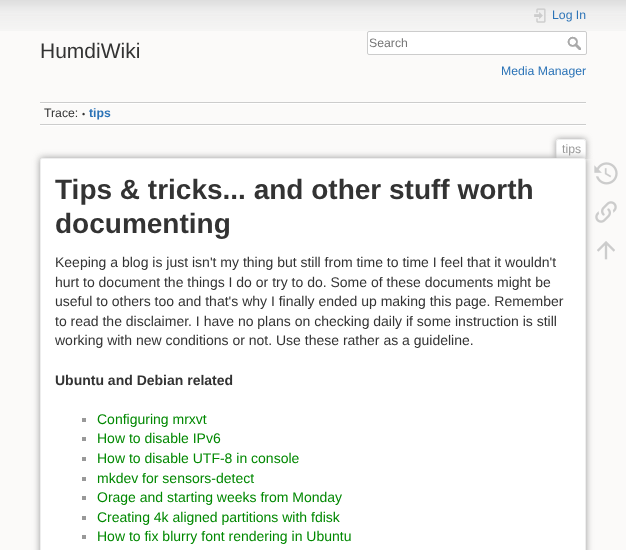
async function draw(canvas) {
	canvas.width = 626;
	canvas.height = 550;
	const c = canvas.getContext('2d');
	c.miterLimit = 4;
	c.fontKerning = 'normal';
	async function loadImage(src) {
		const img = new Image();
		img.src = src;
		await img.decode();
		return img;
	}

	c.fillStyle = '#fbfaf9';
	c.fillRect(0, 0, 626, 550);
	c.drawImage(await loadImage('img1.png'), 0, 0, 626, 31);
	c.font = '21px Liberation Sans';
	c.fillStyle = '#333';
	c.fillText('HumdiWiki', 40, 58);
	c.drawImage(await loadImage('img2.png'), 534, 8, 12, 15);
	c.font = '12.25px Liberation Sans';
	c.fillStyle = '#2b73b7';
	c.fillText('Log In', 552, 19);
	c.fillStyle = '#fff';
	c.beginPath();
	c.roundRect(367.5, 31.5, 219, 23, 1.5);
	c.fill();
	c.strokeStyle = '#ccc';
	c.stroke();
	c.fillStyle = '#757575';
	c.fillText('Search', 369, 47);
	c.drawImage(await loadImage('img3.png'), 567, 36, 14, 14);
	c.fillStyle = '#2b73b7';
	c.fillText('Media Manager', 501, 75);
	for (const [x, y, w, h, color] of [
		[40, 102, 546, 1, '#ccc'],
		[40, 125, 546, 1, '#fff'],
		[40, 103, 546, 1, '#fff'],
		[40, 124, 546, 1, '#ccc'],
	]) {
		c.fillStyle = color;
		c.fillRect(x, y, w, h);
	}
	c.fillStyle = '#333';
	c.fillText('Trace:', 44, 117);
	c.font = '9px Liberation Sans';
	c.fillText('•', 82, 117);
	c.font = 'bold 12.25px Liberation Sans';
	c.fillStyle = '#2b73b7';
	c.fillText('tips', 89, 117);
	c.save();
	c.beginPath();
	c.rect(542, 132, 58, 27);
	c.clip();
	c.fillStyle = '#999';
	c.filter = 'blur(3px)';
	c.beginPath();
	c.roundRect(556, 139, 30, 20, 2);
	c.fill();
	c.filter = 'none';
	c.restore();
	c.fillStyle = '#fff';
	c.beginPath();
	c.roundRect(557, 140, 28, 19, [1, 1, 0, 0]);
	c.fill();
	for (const [x, y, w, h, color] of [
		[557, 139, 28, 1, '#eee'],
		[585, 140, 1, 19, '#eee'],
		[556, 140, 1, 19, '#eee'],
	]) {
		c.fillStyle = color;
		c.fillRect(x, y, w, h);
	}
	c.font = '12.25px Liberation Sans';
	c.fillStyle = '#999';
	c.fillText('tips', 562, 153);
	c.filter = 'blur(3.5px)';
	c.beginPath();
	c.roundRect(40, 158, 546, 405, 2);
	c.fill();
	c.filter = 'none';
	c.fillStyle = '#fff';
	c.beginPath();
	c.roundRect(40.5, 158.5, 545, 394, 1.5);
	c.fill();
	c.strokeStyle = '#eee';
	c.stroke();
	c.font = 'bold 28px Liberation Sans';
	c.fillStyle = '#333';
	c.fillText('Tips & tricks... and other stuff worth', 55, 199);
	c.fillText('documenting', 55, 233);
	c.font = '14px Liberation Sans';
	for (const [text, x, y] of [
		['Keeping a blog is just isn\'t my thing but still from time to time I feel that it wouldn\'t', 55, 267],
		['hurt to document the things I do or try to do. Some of these documents might be', 55, 287],
		['useful to others too and that\'s why I finally ended up making this page. Remember', 55, 306],
		['to read the disclaimer. I have no plans on checking daily if some instruction is still', 55, 326],
		['working with new conditions or not. Use these rather as a guideline.', 55, 345],
	]) {
		c.fillText(text, x, y);
	}
	c.font = 'bold 14px Liberation Sans';
	c.fillText('Ubuntu and Debian related', 55, 385);
	c.fillStyle = '#999';
	c.fillRect(82, 418, 4, 4);
	c.font = '14px Liberation Sans';
	c.fillStyle = '#080';
	c.fillText('Configuring mrxvt', 97, 424);
	c.fillStyle = '#999';
	c.fillRect(82, 437, 4, 4);
	c.fillStyle = '#080';
	c.fillText('How to disable IPv6', 97, 443);
	c.fillStyle = '#999';
	c.fillRect(82, 457, 4, 4);
	c.fillStyle = '#080';
	c.fillText('How to disable UTF-8 in console', 97, 463);
	c.fillStyle = '#999';
	c.fillRect(82, 477, 4, 4);
	c.fillStyle = '#080';
	c.fillText('mkdev for sensors-detect', 97, 483);
	c.fillStyle = '#999';
	c.fillRect(82, 496, 4, 4);
	c.fillStyle = '#080';
	c.fillText('Orage and starting weeks from Monday', 97, 502);
	c.fillStyle = '#999';
	c.fillRect(82, 516, 4, 4);
	c.fillStyle = '#080';
	c.fillText('Creating 4k aligned partitions with fdisk', 97, 522);
	c.fillStyle = '#999';
	c.fillRect(82, 535, 4, 4);
	c.fillStyle = '#080';
	c.fillText('How to fix blurry font rendering in Ubuntu', 97, 541);
	c.drawImage(await loadImage('img4.png'), 594, 162, 24, 23);
	c.drawImage(await loadImage('img5.png'), 595, 201, 22, 22);
	c.drawImage(await loadImage('img6.png'), 597, 241, 18, 19);
}

draw(document.querySelector('canvas'));
